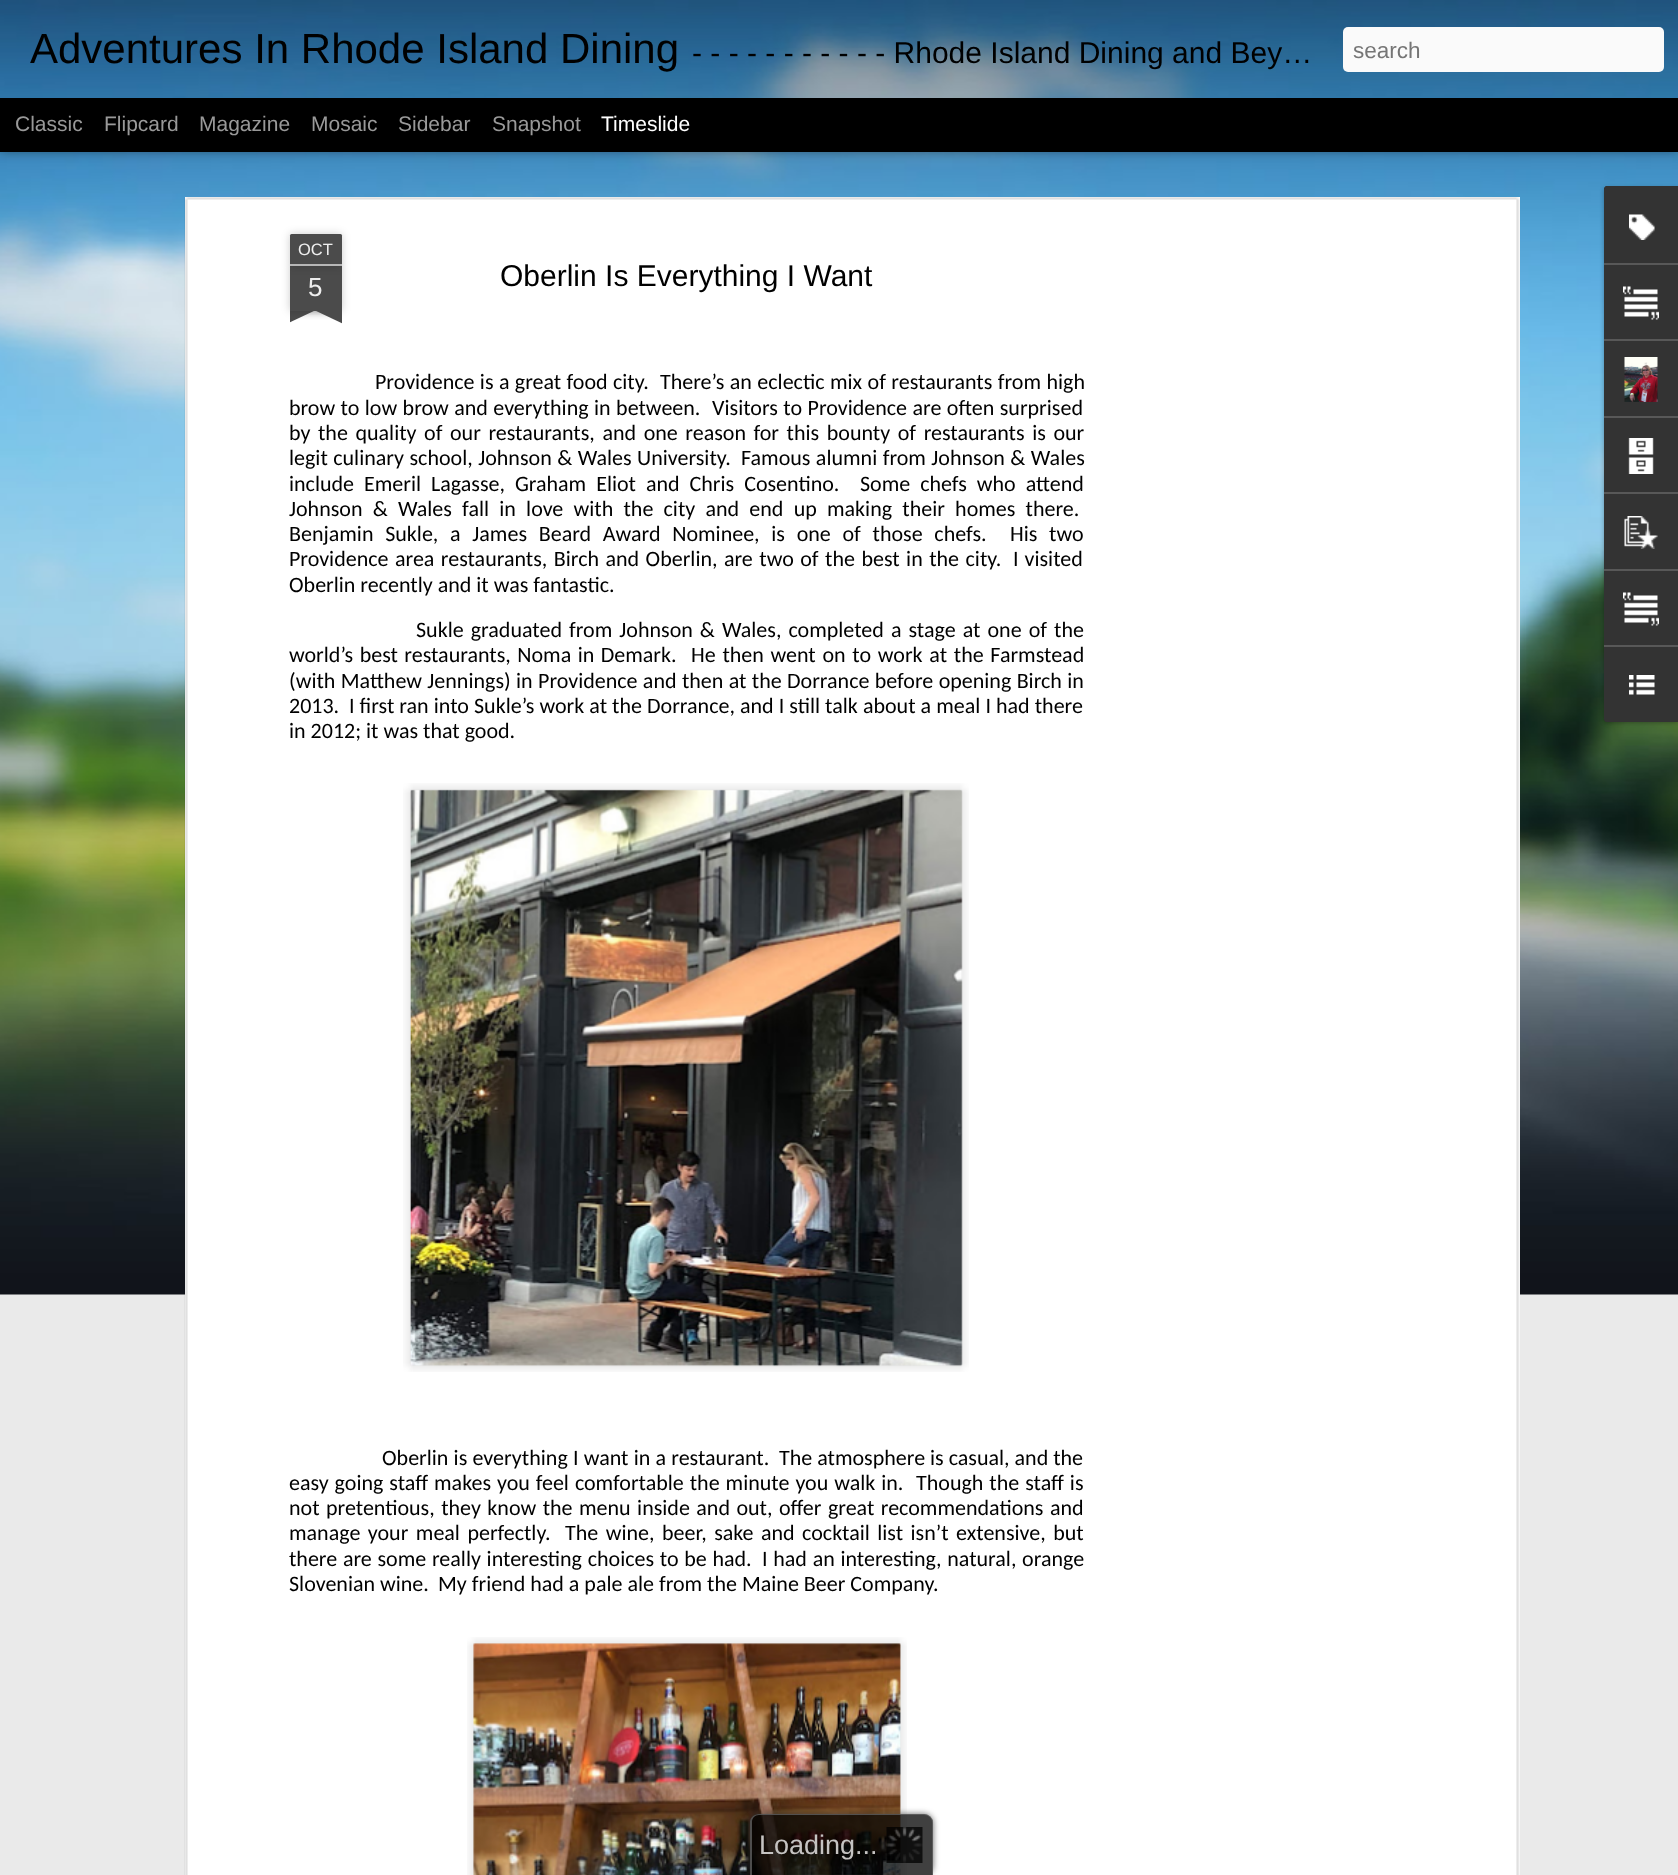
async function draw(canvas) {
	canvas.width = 1678;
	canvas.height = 1875;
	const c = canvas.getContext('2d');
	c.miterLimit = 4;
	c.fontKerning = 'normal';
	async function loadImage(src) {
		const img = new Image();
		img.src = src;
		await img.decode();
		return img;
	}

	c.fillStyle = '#000';
	c.fillRect(0, 0, 1678, 1875);
	c.fillStyle = '#eaeaea';
	c.fillRect(0, 1294, 1678, 581);
	c.drawImage(await loadImage('img2.png'), 0, 152, 1678, 1143);
	c.fillStyle = '#00000080';
	c.filter = 'blur(6px)';
	c.beginPath();
	c.rect(0, 98, 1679, 52);
	c.fill();
	c.filter = 'none';
	c.drawImage(await loadImage('img1.png'), 0, 0, 1678, 98);
	c.font = '42px Liberation Sans';
	c.fillStyle = '#000';
	c.fillText('Adventures In Rhode Island Dining', 30, 63);
	c.font = '30px Liberation Sans';
	c.fillText('- - - - - - - - - - - Rhode Island Dining and Bey…', 692, 63);
	c.fillStyle = '#fafafa';
	c.beginPath();
	c.roundRect(1343, 27, 321, 45, 5);
	c.fill();
	c.font = '22.5px Liberation Sans';
	c.fillStyle = '#757575';
	c.fillText('search', 1353, 58);
	c.font = '21px Liberation Sans';
	c.fillStyle = '#999';
	for (const [text, x, y] of [
		['Classic', 15, 131],
		['Flipcard', 104, 131],
		['Magazine', 199, 131],
		['Mosaic', 311, 131],
		['Sidebar', 398, 131],
		['Snapshot', 492, 131],
	]) {
		c.fillText(text, x, y);
	}
	c.fillStyle = '#fff';
	c.fillText('Timeslide', 601, 131);
	c.fillRect(185, 197, 1335, 1678);
	c.drawImage(await loadImage('img3.png'), 184, 197, 1336, 1678);
	c.fillStyle = '#00000033';
	c.filter = 'blur(4px)';
	c.beginPath();
	c.rect(290, 266, 52, 45);
	c.fill();
	c.filter = 'none';
	c.fillStyle = '#4b4b4b';
	c.fillRect(290, 266, 52, 45);
	c.fillStyle = '#00000033';
	c.filter = 'blur(4px)';
	c.beginPath();
	c.roundRect(290, 234, 52, 32, 1.5);
	c.fill();
	c.filter = 'none';
	c.fillStyle = '#4b4b4b';
	c.beginPath();
	c.roundRect(290, 234, 52, 32, [1.5, 1.5, 0, 0]);
	c.fill();
	c.fillStyle = '#b7b7b7';
	c.fillRect(290, 264, 52, 2);
	c.font = '16.5px Liberation Sans';
	c.fillStyle = '#eee';
	c.fillText('OCT', 298, 255);
	c.font = '26px Liberation Sans';
	c.fillText('5', 308, 296);
	c.save();
	c.beginPath();
	c.rect(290, 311, 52, 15);
	c.clip();
	c.fillStyle = '#00000033';
	c.filter = 'blur(4px)';
	c.beginPath();
	c.rect(276, 296, 75, 15);
	c.fill();
	c.filter = 'none';
	c.restore();
	c.save();
	c.beginPath();
	c.rect(290, 311, 52, 15);
	c.clip();
	c.fillStyle = '#4b4b4b';
	c.beginPath();
	c.moveTo(276, 312);
	c.lineTo(344, 280);
	c.lineTo(350, 294);
	c.lineTo(282, 326);
	c.closePath();
	c.fill();
	c.restore();
	c.save();
	c.beginPath();
	c.rect(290, 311, 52, 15);
	c.clip();
	c.fillStyle = '#00000033';
	c.filter = 'blur(4px)';
	c.beginPath();
	c.rect(281, 296, 75, 15);
	c.fill();
	c.filter = 'none';
	c.restore();
	c.save();
	c.beginPath();
	c.rect(290, 311, 52, 15);
	c.clip();
	c.fillStyle = '#4b4b4b';
	c.beginPath();
	c.moveTo(286, 280);
	c.lineTo(354, 312);
	c.lineTo(348, 326);
	c.lineTo(280, 294);
	c.closePath();
	c.fill();
	c.restore();
	c.font = '30px Liberation Sans';
	c.fillStyle = '#000';
	c.fillText('Oberlin Is Everything I Want', 500, 286);
	c.wordSpacing = '0.4px';
	c.font = '22px Carlito';
	c.fillText('Providence is a great food city.', 375, 389);
	c.wordSpacing = '0.5px';
	for (const [text, x, y] of [
		['There’s an eclectic mix of restaurants from high', 660, 389],
		['brow to low brow and everything in between.', 289, 415],
		['Visitors to Providence are often surprised', 712, 415],
	]) {
		c.fillText(text, x, y);
	}
	c.wordSpacing = '2.6px';
	c.fillText('by the quality of our restaurants, and one reason for this bounty of restaurants is our', 289, 440);
	c.wordSpacing = '0.5px';
	c.fillText('legit culinary school, Johnson & Wales University.', 289, 465);
	c.fillText('Famous alumni from Johnson & Wales', 741, 465);
	c.wordSpacing = '5px';
	c.fillText('include Emeril Lagasse, Graham Eliot and Chris Cosentino.', 289, 491);
	c.fillText('Some chefs who attend', 860, 491);
	c.wordSpacing = '5.25px';
	c.fillText('Johnson & Wales fall in love with the city and end up making their homes there.', 289, 516);
	c.wordSpacing = '6.75px';
	c.fillText('Benjamin Sukle, a James Beard Award Nominee, is one of those chefs.', 289, 541);
	c.fillText('His two', 1010, 541);
	c.wordSpacing = '1.5px';
	c.fillText('Providence area restaurants, Birch and Oberlin, are two of the best in the city.', 289, 566);
	c.wordSpacing = '1px';
	c.fillText('I visited', 1013, 566);
	c.wordSpacing = '0px';
	c.fillText('Oberlin recently and it was fantastic.', 289, 592);
	c.wordSpacing = '2.1px';
	c.fillText('Sukle graduated from Johnson & Wales, completed a stage at one of the', 416, 637);
	c.wordSpacing = '1.5px';
	c.fillText('world’s best restaurants, Noma in Demark.', 289, 662);
	c.wordSpacing = '1.75px';
	c.fillText('He then went on to work at the Farmstead', 691, 662);
	c.wordSpacing = '0.4px';
	c.fillText('(with Matthew Jennings) in Providence and then at the Dorrance before opening Birch in', 289, 688);
	c.wordSpacing = '0px';
	c.fillText('2013.', 289, 713);
	c.wordSpacing = '0.1px';
	c.fillText('I first ran into Sukle’s work at the Dorrance, and I still talk about a meal I had there', 349, 713);
	c.wordSpacing = '0px';
	c.fillText('in 2012; it was that good.', 289, 738);
	c.drawImage(await loadImage('img4.png'), 403, 783, 566, 589);
	c.drawImage(await loadImage('img5.png'), 410, 789, 553, 578);
	c.wordSpacing = '0.25px';
	c.fillText('Oberlin is everything I want in a restaurant.', 382, 1465);
	c.wordSpacing = '0px';
	c.fillText('The atmosphere is casual, and the', 779, 1465);
	c.wordSpacing = '1px';
	c.fillText('easy going staff makes you feel comfortable the minute you walk in.', 289, 1490);
	c.fillText('Though the staff is', 916, 1490);
	c.wordSpacing = '1.5px';
	c.fillText('not pretentious, they know the menu inside and out, offer great recommendations and', 289, 1515);
	c.wordSpacing = '2.5px';
	c.fillText('manage your meal perfectly.', 289, 1540);
	c.fillText('The wine, beer, sake and cocktail list isn’t extensive, but', 565, 1540);
	c.wordSpacing = '0.75px';
	c.fillText('there are some really interesting choices to be had.', 289, 1566);
	c.fillText('I had an interesting, natural, orange', 762, 1566);
	c.wordSpacing = '0px';
	c.fillText('Slovenian wine.', 289, 1591);
	c.fillText('My friend had a pale ale from the Maine Beer Company.', 438, 1591);
	c.drawImage(await loadImage('img6.png'), 467, 1637, 440, 238);
	c.drawImage(await loadImage('img7.png'), 473, 1643, 428, 232);
	c.fillStyle = '#0000004d';
	c.filter = 'blur(2px)';
	c.beginPath();
	c.roundRect(1604, 188, 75, 535, 3);
	c.fill();
	c.filter = 'none';
	c.fillStyle = '#333';
	c.beginPath();
	c.moveTo(1607, 186);
	c.lineTo(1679, 186);
	c.lineTo(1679, 722);
	c.lineTo(1607, 722);
	c.bezierCurveTo(1605.5, 722, 1604, 720.5, 1604, 719);
	c.lineTo(1604, 189);
	c.bezierCurveTo(1604, 187.5, 1605.5, 186, 1607, 186);
	c.closePath();
	c.fill();
	c.beginPath();
	c.moveTo(1607, 186);
	c.lineTo(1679, 186);
	c.lineTo(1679, 263);
	c.lineTo(1604, 263);
	c.lineTo(1604, 189);
	c.bezierCurveTo(1604, 187.5, 1605.5, 186, 1607, 186);
	c.closePath();
	c.fill();
	c.drawImage(await loadImage('img8.png'), 1629, 214, 26, 26);
	c.fillStyle = '#585858';
	c.fillRect(1604, 263, 74, 2);
	c.drawImage(await loadImage('img9.png'), 1623, 286, 36, 34);
	c.fillRect(1604, 339, 74, 2);
	c.drawImage(await loadImage('img10.png'), 1624, 357, 34, 45);
	c.fillRect(1604, 416, 74, 2);
	c.drawImage(await loadImage('img11.png'), 1628, 438, 26, 36);
	c.fillRect(1604, 492, 74, 2);
	c.drawImage(await loadImage('img12.png'), 1624, 516, 34, 33);
	c.fillRect(1604, 569, 74, 2);
	c.drawImage(await loadImage('img9.png'), 1623, 592, 36, 34);
	c.fillStyle = '#333';
	c.beginPath();
	c.moveTo(1604, 645);
	c.lineTo(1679, 645);
	c.lineTo(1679, 722);
	c.lineTo(1607, 722);
	c.bezierCurveTo(1605.5, 722, 1604, 720.5, 1604, 719);
	c.closePath();
	c.fill();
	c.fillStyle = '#585858';
	c.fillRect(1604, 645, 74, 2);
	c.drawImage(await loadImage('img13.png'), 1629, 675, 26, 20);
	c.save();
	c.beginPath();
	c.moveTo(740, 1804);
	c.lineTo(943, 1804);
	c.lineTo(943, 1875);
	c.lineTo(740, 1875);
	c.closePath();
	c.moveTo(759, 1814);
	c.lineTo(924, 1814);
	c.bezierCurveTo(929, 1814, 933, 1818, 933, 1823);
	c.lineTo(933, 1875);
	c.lineTo(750, 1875);
	c.lineTo(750, 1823);
	c.bezierCurveTo(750, 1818, 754, 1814, 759, 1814);
	c.closePath();
	c.clip('evenodd');
	c.fillStyle = '#333333bf';
	c.filter = 'blur(3px)';
	c.beginPath();
	c.roundRect(750, 1814, 183, 61, 9);
	c.fill();
	c.filter = 'none';
	c.restore();
	c.fillStyle = '#000000bf';
	c.beginPath();
	c.roundRect(750, 1814, 183, 61, [9, 9, 0, 0]);
	c.fill();
	c.fillStyle = '#666666bf';
	c.beginPath();
	c.moveTo(759, 1814);
	c.lineTo(924, 1814);
	c.bezierCurveTo(929, 1814, 933, 1818, 933, 1822);
	c.lineTo(933, 1875);
	c.lineTo(750, 1875);
	c.lineTo(750, 1822);
	c.bezierCurveTo(750, 1818, 754, 1814, 759, 1814);
	c.closePath();
	c.moveTo(759, 1815);
	c.lineTo(924, 1815);
	c.bezierCurveTo(928, 1815, 932, 1818, 932, 1822);
	c.lineTo(932, 1875);
	c.lineTo(752, 1875);
	c.lineTo(752, 1822);
	c.bezierCurveTo(752, 1818, 755, 1815, 759, 1815);
	c.closePath();
	c.fill('evenodd');
	c.drawImage(await loadImage('img14.png'), 886, 1827, 37, 36);
	c.font = '27px Liberation Sans';
	c.fillStyle = '#c5c3c2';
	c.fillText('Loading', 759, 1854);
	c.fillText('...', 855, 1854);
}

draw(document.querySelector('canvas'));
